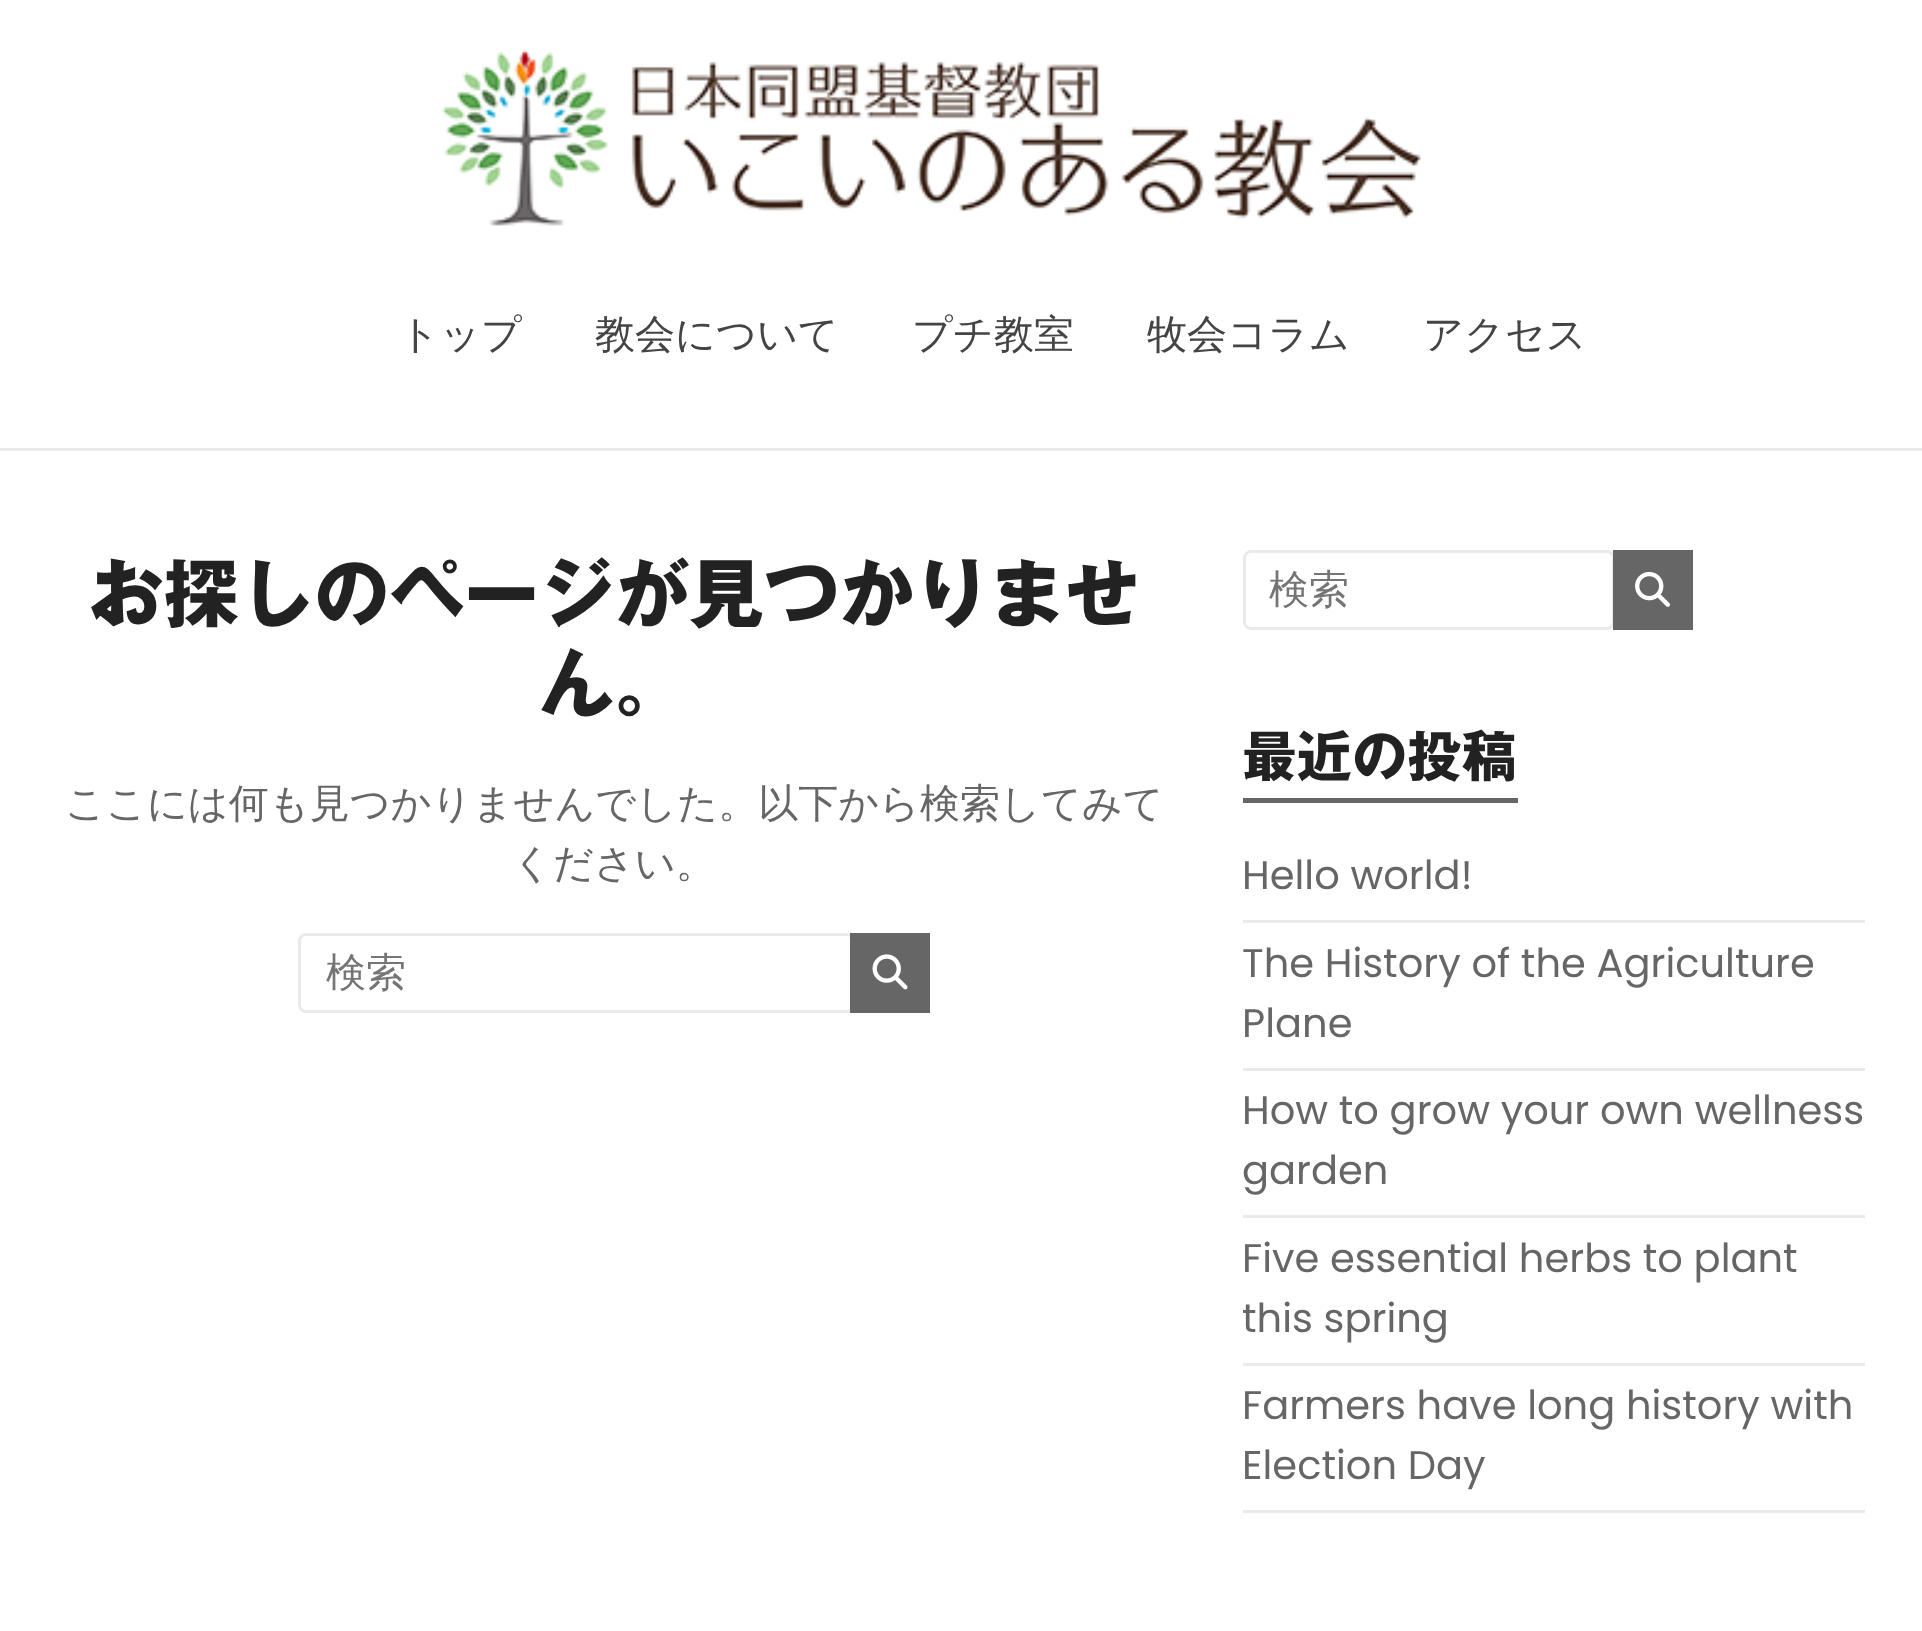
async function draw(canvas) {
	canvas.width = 1922;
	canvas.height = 1631;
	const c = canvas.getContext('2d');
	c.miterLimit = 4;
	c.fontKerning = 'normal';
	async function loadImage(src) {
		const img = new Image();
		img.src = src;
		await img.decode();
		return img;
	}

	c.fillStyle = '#fff';
	c.fillRect(0, 0, 1922, 1631);
	c.fillStyle = '#eaeaea';
	c.fillRect(0, 448, 1922, 3);
	c.drawImage(await loadImage('img1.png'), 442, 49, 979, 177);
	c.font = '500 40px WenQuanYi Zen Hei';
	c.fillStyle = '#444';
	for (const [text, x, y] of [
		['トップ', 399, 348],
		['教会について', 595, 348],
		['プチ教室', 912, 348],
		['牧会コラム', 1147, 348],
		['アクセス', 1423, 348],
	]) {
		c.fillText(text, x, y);
	}
	c.font = 'bold 75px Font';
	c.fillStyle = '#222';
	c.fillText('お探しのページが見つかりませ', 89, 622);
	c.fillText('ん。', 539, 712);
	c.font = '500 40px WenQuanYi Zen Hei';
	c.fillStyle = '#666';
	c.fillText('ここには何も見つかりませんでした。以下から検索してみて', 65, 817);
	c.fillText('ください。', 512, 877);
	c.beginPath();
	c.roundRect(299.5, 934.5, 554, 77, 6.5);
	c.strokeStyle = '#eaeaea';
	c.lineWidth = 3;
	c.stroke();
	c.fillStyle = '#757575';
	c.fillText('検索', 326, 986);
	c.fillStyle = '#666';
	c.fillRect(850, 933, 80, 80);
	c.drawImage(await loadImage('img2.png'), 872, 954, 36, 36);
	c.beginPath();
	c.roundRect(1244.5, 551.5, 369, 77, 6.5);
	c.stroke();
	c.fillStyle = '#757575';
	c.fillText('検索', 1269, 603);
	c.fillStyle = '#666';
	c.fillRect(1613, 550, 80, 80);
	c.drawImage(await loadImage('img3.png'), 1635, 571, 35, 36);
	c.font = 'bold 55px Font';
	c.fillStyle = '#222';
	c.fillText('最近の投稿', 1242, 777);
	c.fillStyle = '#666';
	c.fillRect(1243, 798, 275, 5);
	c.fillStyle = '#eaeaea';
	c.fillRect(1243, 920, 622, 3);
	c.font = '40px Poppins';
	c.fillStyle = '#666';
	c.fillText('Hello world!', 1242, 889);
	c.fillStyle = '#eaeaea';
	c.fillRect(1243, 1068, 622, 3);
	c.fillStyle = '#666';
	c.fillText('The History of the Agriculture', 1242, 977);
	c.fillText('Plane', 1242, 1037);
	c.fillStyle = '#eaeaea';
	c.fillRect(1243, 1215, 622, 3);
	c.fillStyle = '#666';
	c.fillText('How to grow your own wellness', 1242, 1124);
	c.fillText('garden', 1242, 1184);
	c.fillStyle = '#eaeaea';
	c.fillRect(1243, 1363, 622, 3);
	c.fillStyle = '#666';
	c.fillText('Five essential herbs to plant', 1242, 1272);
	c.fillText('this spring', 1242, 1332);
	c.fillStyle = '#eaeaea';
	c.fillRect(1243, 1510, 622, 3);
	c.fillStyle = '#666';
	c.fillText('Farmers have long history with', 1242, 1419);
	c.fillText('Election Day', 1242, 1479);
}

draw(document.querySelector('canvas'));
